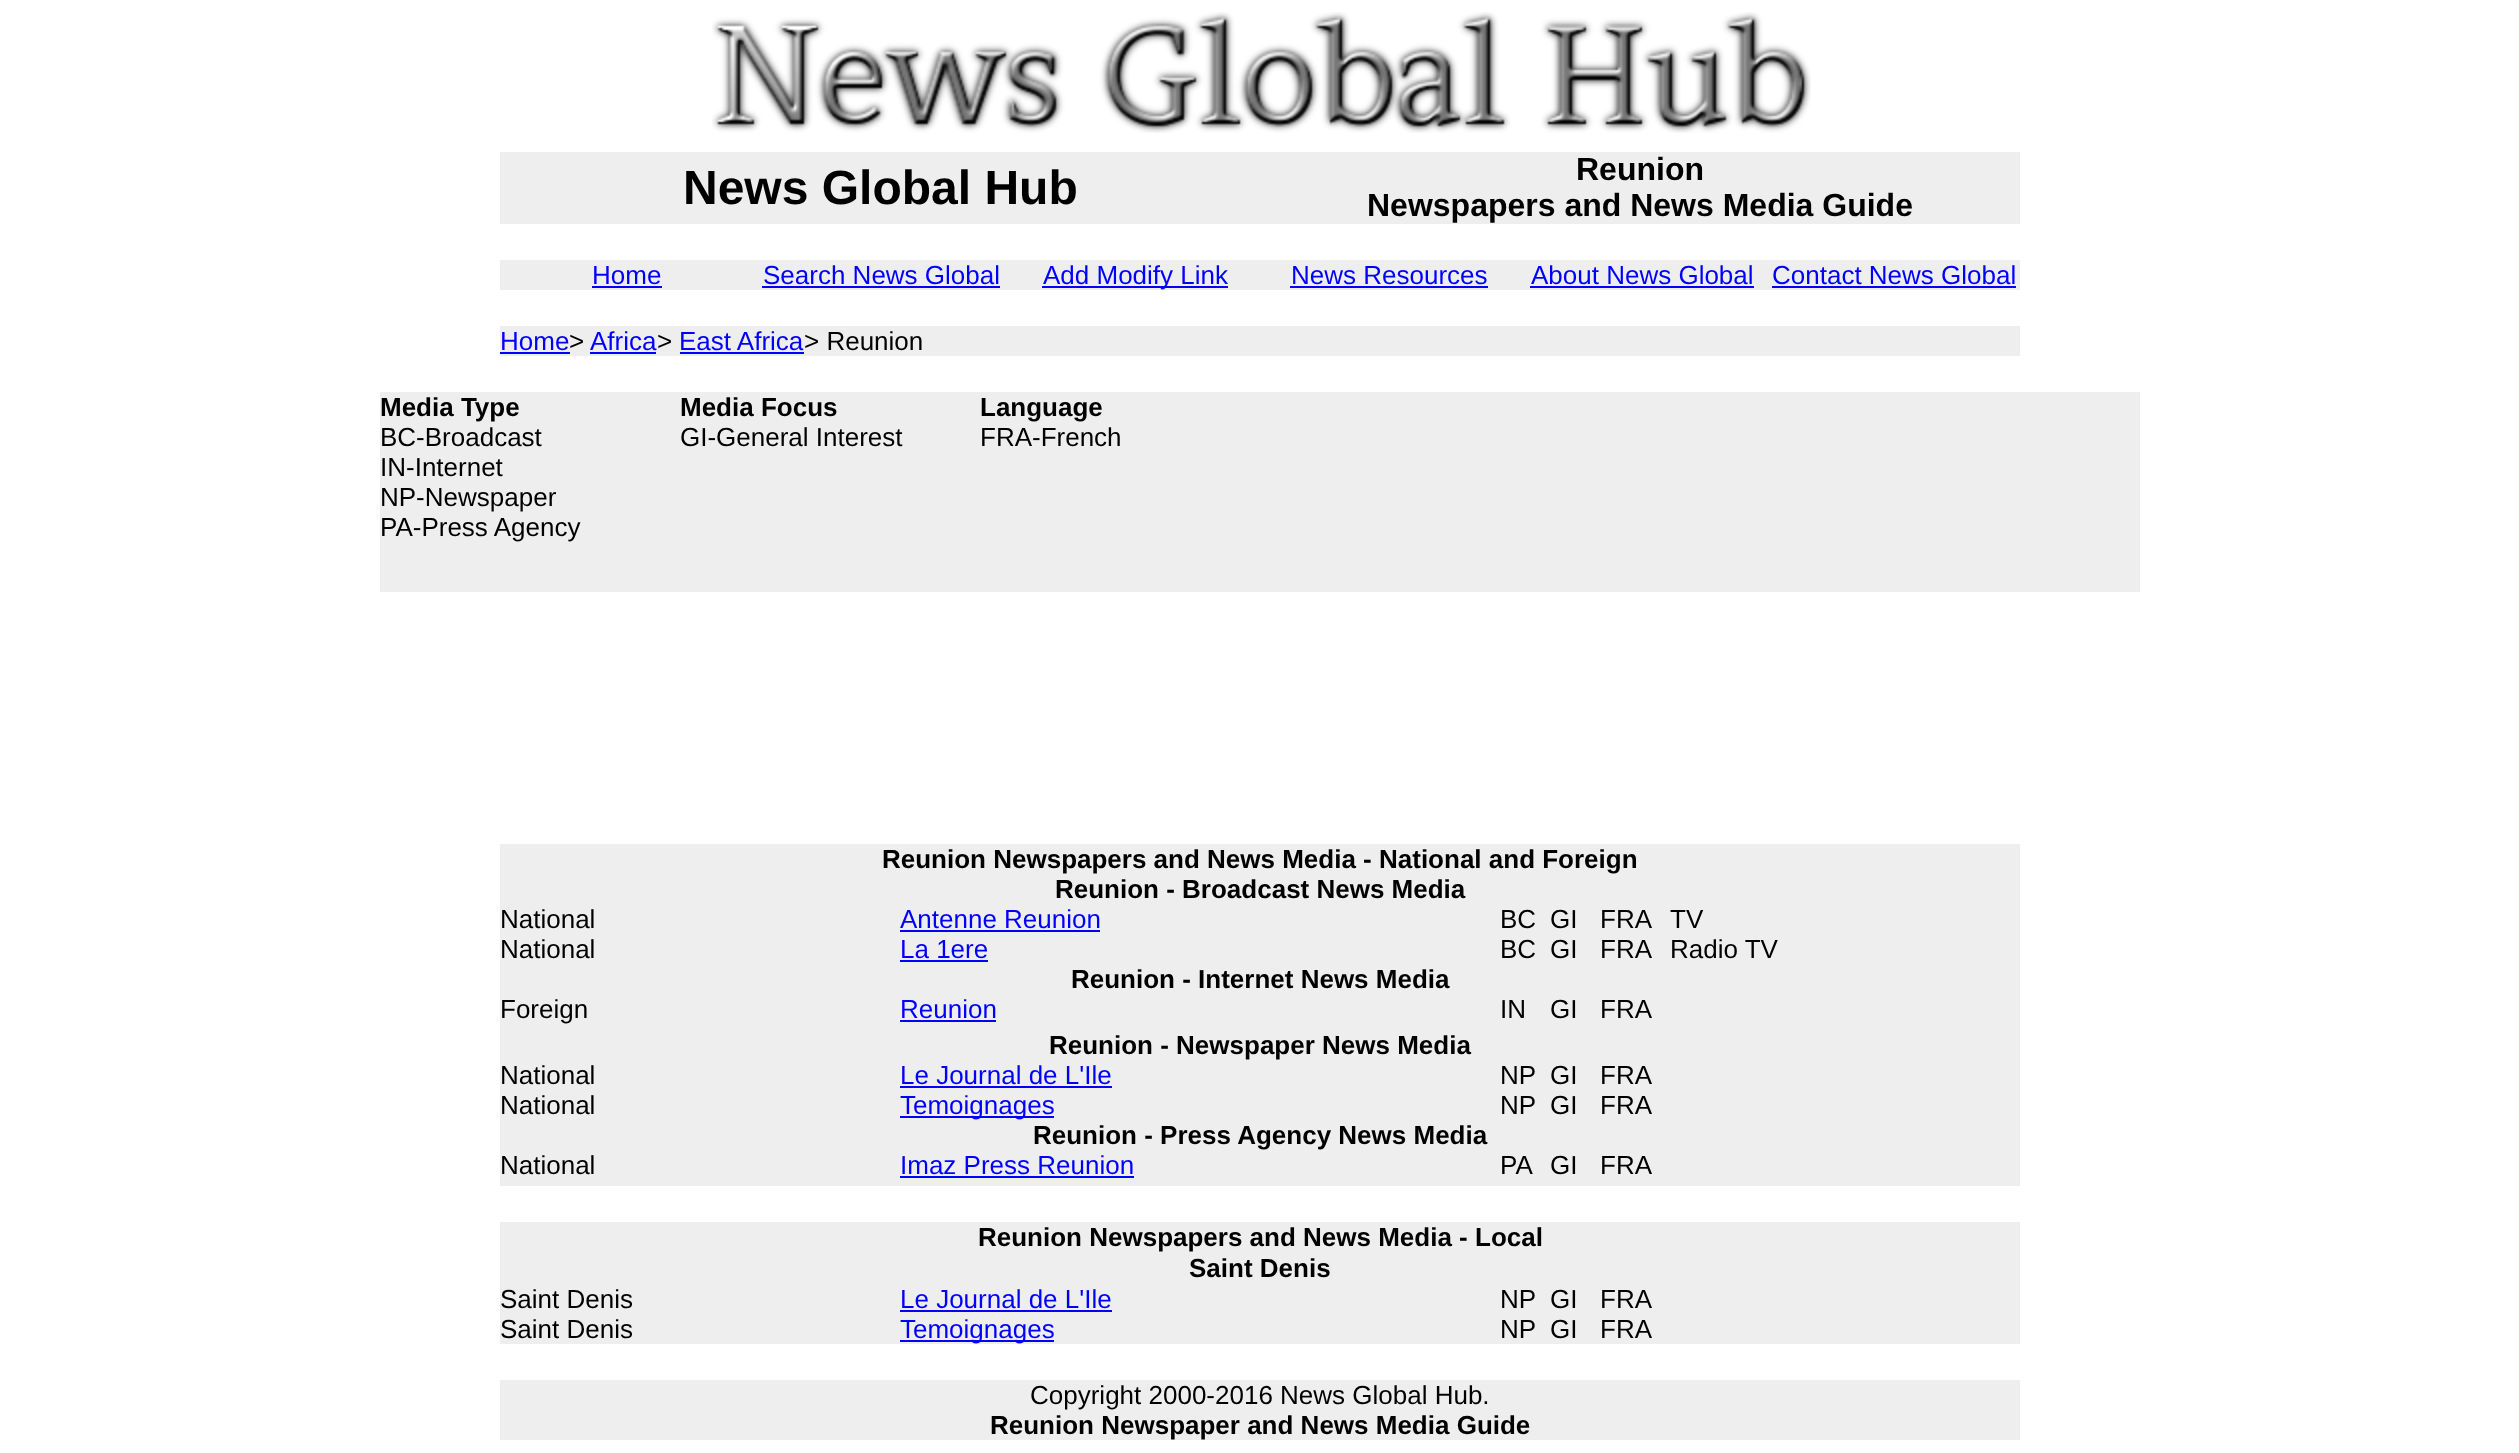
async function draw(canvas) {
	canvas.width = 2519;
	canvas.height = 1453;
	const c = canvas.getContext('2d');
	c.miterLimit = 4;
	c.fontKerning = 'normal';
	async function loadImage(src) {
		const img = new Image();
		img.src = src;
		await img.decode();
		return img;
	}

	c.fillStyle = '#fff';
	c.fillRect(0, 0, 2519, 1453);
	c.drawImage(await loadImage('img1.png'), 712, 12, 1099, 121);
	c.fillStyle = '#eee';
	c.fillRect(500, 152, 1520, 72);
	c.font = 'bold 48px Liberation Sans';
	c.fillStyle = '#000';
	c.fillText('News Global Hub', 683, 204);
	c.font = 'bold 32px Liberation Sans';
	c.fillText('Reunion', 1576, 180);
	c.fillText('Newspapers and News Media Guide', 1367, 216);
	c.fillStyle = '#eee';
	c.fillRect(500, 260, 1520, 30);
	c.font = '26px Liberation Sans';
	c.fillStyle = '#00f';
	c.fillText('Home', 592, 284);
	c.fillRect(592, 286, 70, 2);
	c.fillText('Search News Global', 763, 284);
	c.fillRect(762, 286, 238, 2);
	c.fillRect(1042, 286, 186, 2);
	c.fillText('Add Modify Link', 1043, 284);
	c.fillText('News Resources', 1291, 284);
	c.fillRect(1290, 286, 198, 2);
	c.fillText('About News Global', 1531, 284);
	c.fillRect(1530, 286, 224, 2);
	c.fillText('Contact News Global', 1772, 284);
	c.fillRect(1772, 286, 244, 2);
	c.fillStyle = '#eee';
	c.fillRect(500, 326, 1520, 30);
	c.fillStyle = '#00f';
	c.fillText('Home', 500, 350);
	c.fillRect(500, 352, 70, 2);
	c.fillStyle = '#000';
	c.fillText('>', 569, 350);
	c.fillStyle = '#00f';
	c.fillText('Africa', 590, 350);
	c.fillRect(590, 352, 66, 2);
	c.fillStyle = '#000';
	c.fillText('>', 657, 350);
	c.fillStyle = '#00f';
	c.fillText('East Africa', 679, 350);
	c.fillRect(680, 352, 124, 2);
	c.fillStyle = '#000';
	c.fillText('> Reunion', 804, 350);
	c.fillStyle = '#eee';
	c.fillRect(380, 392, 1760, 200);
	c.font = 'bold 26px Liberation Sans';
	c.fillStyle = '#000';
	c.fillText('Media Type', 380, 416);
	c.font = '26px Liberation Sans';
	for (const [text, x, y] of [
		['BC-Broadcast', 380, 446],
		['IN-Internet', 380, 476],
		['NP-Newspaper', 380, 506],
		['PA-Press Agency', 380, 536],
	]) {
		c.fillText(text, x, y);
	}
	c.font = 'bold 26px Liberation Sans';
	c.fillText('Media Focus', 680, 416);
	c.font = '26px Liberation Sans';
	c.fillText('GI-General Interest', 680, 446);
	c.font = 'bold 26px Liberation Sans';
	c.fillText('Language', 980, 416);
	c.font = '26px Liberation Sans';
	c.fillText('FRA-French', 980, 446);
	c.fillStyle = '#eee';
	c.fillRect(500, 844, 1520, 342);
	c.font = 'bold 26px Liberation Sans';
	c.fillStyle = '#000';
	c.fillText('Reunion Newspapers and News Media - National and Foreign', 882, 868);
	c.fillText('Reunion - Broadcast News Media', 1055, 898);
	c.font = '26px Liberation Sans';
	c.fillText('National', 500, 928);
	c.fillText('National', 500, 958);
	c.fillStyle = '#00f';
	c.fillText('Antenne Reunion', 900, 928);
	c.fillRect(900, 930, 200, 2);
	c.fillText('La 1ere', 900, 958);
	c.fillRect(900, 960, 88, 2);
	c.fillStyle = '#000';
	for (const [text, x, y] of [
		['BC', 1500, 928],
		['BC', 1500, 958],
		['GI', 1550, 928],
		['GI', 1550, 958],
		['FRA', 1600, 928],
		['FRA', 1600, 958],
		['TV', 1670, 928],
		['Radio TV', 1670, 958],
	]) {
		c.fillText(text, x, y);
	}
	c.font = 'bold 26px Liberation Sans';
	c.fillText('Reunion - Internet News Media', 1071, 988);
	c.font = '26px Liberation Sans';
	c.fillText('Foreign', 500, 1018);
	c.fillStyle = '#00f';
	c.fillText('Reunion', 900, 1018);
	c.fillRect(900, 1020, 96, 2);
	c.fillStyle = '#000';
	for (const [text, x, y] of [
		['IN', 1500, 1018],
		['GI', 1550, 1018],
		['FRA', 1600, 1018],
	]) {
		c.fillText(text, x, y);
	}
	c.font = 'bold 26px Liberation Sans';
	c.fillText('Reunion - Newspaper News Media', 1049, 1054);
	c.font = '26px Liberation Sans';
	c.fillText('National', 500, 1084);
	c.fillText('National', 500, 1114);
	c.fillStyle = '#00f';
	c.fillText('Le Journal de L\'Ile', 900, 1084);
	c.fillRect(900, 1086, 212, 2);
	c.fillRect(900, 1116, 154, 2);
	c.fillText('Temoignages', 900, 1114);
	c.fillStyle = '#000';
	for (const [text, x, y] of [
		['NP', 1500, 1084],
		['NP', 1500, 1114],
		['GI', 1550, 1084],
		['GI', 1550, 1114],
		['FRA', 1600, 1084],
		['FRA', 1600, 1114],
	]) {
		c.fillText(text, x, y);
	}
	c.font = 'bold 26px Liberation Sans';
	c.fillText('Reunion - Press Agency News Media', 1033, 1144);
	c.font = '26px Liberation Sans';
	c.fillText('National', 500, 1174);
	c.fillStyle = '#00f';
	c.fillText('Imaz Press Reunion', 900, 1174);
	c.fillRect(900, 1176, 234, 2);
	c.fillStyle = '#000';
	for (const [text, x, y] of [
		['PA', 1500, 1174],
		['GI', 1550, 1174],
		['FRA', 1600, 1174],
	]) {
		c.fillText(text, x, y);
	}
	c.fillStyle = '#eee';
	c.fillRect(500, 1222, 1520, 122);
	c.font = 'bold 26px Liberation Sans';
	c.fillStyle = '#000';
	c.fillText('Reunion Newspapers and News Media - Local', 978, 1246);
	c.fillText('Saint Denis', 1189, 1277);
	c.font = '26px Liberation Sans';
	c.fillText('Saint Denis', 500, 1308);
	c.fillText('Saint Denis', 500, 1338);
	c.fillStyle = '#00f';
	c.fillText('Le Journal de L\'Ile', 900, 1308);
	c.fillRect(900, 1310, 212, 2);
	c.fillRect(900, 1340, 154, 2);
	c.fillText('Temoignages', 900, 1338);
	c.fillStyle = '#000';
	for (const [text, x, y] of [
		['NP', 1500, 1308],
		['NP', 1500, 1338],
		['GI', 1550, 1308],
		['GI', 1550, 1338],
		['FRA', 1600, 1308],
		['FRA', 1600, 1338],
	]) {
		c.fillText(text, x, y);
	}
	c.fillStyle = '#eee';
	c.fillRect(500, 1380, 1520, 60);
	c.fillStyle = '#000';
	c.fillText('Copyright 2000-2016 News Global Hub.', 1030, 1404);
	c.font = 'bold 26px Liberation Sans';
	c.fillText('Reunion Newspaper and News Media Guide', 990, 1434);
}

draw(document.querySelector('canvas'));
